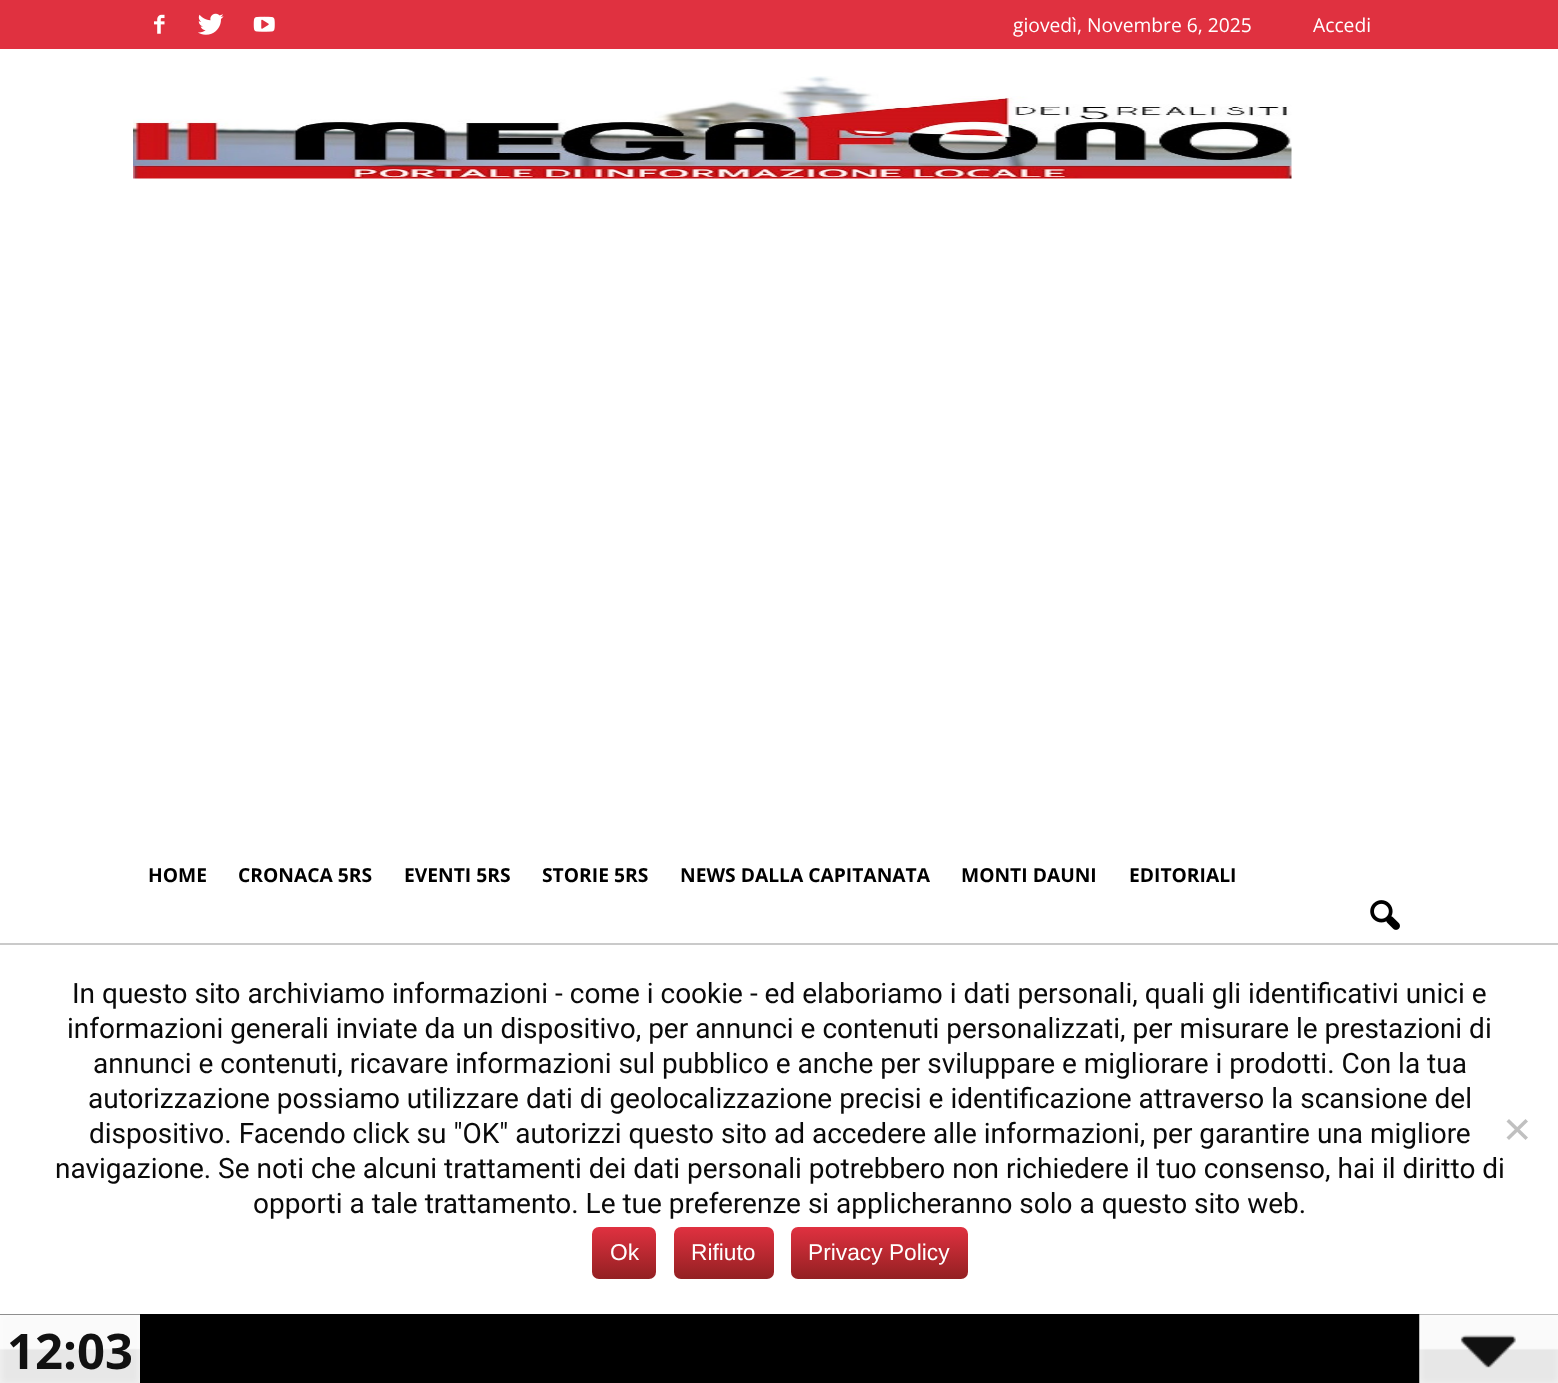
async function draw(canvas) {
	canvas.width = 1558;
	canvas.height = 1383;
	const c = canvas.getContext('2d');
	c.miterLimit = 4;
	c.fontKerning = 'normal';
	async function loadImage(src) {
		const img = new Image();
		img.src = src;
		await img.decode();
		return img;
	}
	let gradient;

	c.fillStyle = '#fff';
	c.fillRect(0, 0, 1558, 1383);
	c.fillStyle = '#e03140';
	c.fillRect(0, 0, 1558, 49);
	c.drawImage(await loadImage('img1.png'), 154, 14, 11, 20);
	c.drawImage(await loadImage('img2.png'), 198, 13, 26, 22);
	c.drawImage(await loadImage('img3.png'), 253, 16, 22, 16);
	c.font = '19.25px Open Sans';
	c.fillStyle = '#fff';
	c.fillText('giovedì, Novembre 6, 2025', 1013, 32);
	c.fillText('Accedi', 1313, 32);
	c.drawImage(await loadImage('img4.png'), 133, 76, 1159, 103);
	c.font = 'bold 19.25px Open Sans';
	c.fillStyle = '#000';
	for (const [text, x, y] of [
		['HOME', 148, 882],
		['CRONACA 5RS', 238, 882],
		['EVENTI 5RS', 404, 882],
		['STORIE 5RS', 542, 882],
		['NEWS DALLA CAPITANATA', 680, 882],
		['MONTI DAUNI', 961, 882],
		['EDITORIALI', 1129, 882],
	]) {
		c.fillText(text, x, y);
	}
	c.drawImage(await loadImage('img5.png'), 1370, 900, 30, 30);
	c.fillStyle = '#cacaca';
	c.fillRect(0, 943, 1558, 2);
	c.font = '28px Roboto';
	c.fillStyle = '#0a0a0a';
	for (const [text, x, y] of [
		['In questo sito archiviamo informazioni - come i cookie - ed elaboriamo i dati personali, quali gli identificativi unici e', 72, 1003],
		['informazioni generali inviate da un dispositivo, per annunci e contenuti personalizzati, per misurare le prestazioni di', 67, 1038],
		['annunci e contenuti, ricavare informazioni sul pubblico e anche per sviluppare e migliorare i prodotti. Con la tua', 93, 1073],
		['autorizzazione possiamo utilizzare dati di geolocalizzazione precisi e identificazione attraverso la scansione del', 88, 1108],
		['dispositivo. Facendo click su "OK" autorizzi questo sito ad accedere alle informazioni, per garantire una migliore', 89, 1143],
		['navigazione. Se noti che alcuni trattamenti dei dati personali potrebbero non richiedere il tuo consenso, hai il diritto di', 55, 1178],
		['opporti a tale trattamento. Le tue preferenze si applicheranno solo a questo sito web.', 253, 1213],
	]) {
		c.fillText(text, x, y);
	}
	c.fillStyle = '#c0c0c0';
	c.beginPath();
	c.moveTo(1525.5, 1119);
	c.lineTo(1528, 1121.5);
	c.lineTo(1509, 1140);
	c.lineTo(1506.5, 1137.5);
	c.closePath();
	c.fill();
	c.beginPath();
	c.moveTo(1506.5, 1121.5);
	c.lineTo(1509, 1119);
	c.lineTo(1528, 1137.5);
	c.lineTo(1525.5, 1140);
	c.closePath();
	c.fill();
	gradient = c.createLinearGradient(624, 1227, 624, 1279);
	gradient.addColorStop(0, '#e03140');
	gradient.addColorStop(1, '#932022');
	c.fillStyle = gradient;
	c.beginPath();
	c.roundRect(592, 1227, 64, 52, 7);
	c.fill();
	c.font = '22.75px Liberation Sans';
	c.fillStyle = '#fff';
	c.fillText('Ok', 610, 1260);
	gradient = c.createLinearGradient(724, 1227, 724, 1279);
	gradient.addColorStop(0, '#e03140');
	gradient.addColorStop(1, '#932022');
	c.fillStyle = gradient;
	c.beginPath();
	c.roundRect(674, 1227, 100, 52, 7);
	c.fill();
	c.fillStyle = '#fff';
	c.fillText('Rifiuto', 691, 1260);
	gradient = c.createLinearGradient(879, 1227, 879, 1279);
	gradient.addColorStop(0, '#e03140');
	gradient.addColorStop(1, '#932022');
	c.fillStyle = gradient;
	c.beginPath();
	c.roundRect(791, 1227, 177, 52, 7);
	c.fill();
	c.fillStyle = '#fff';
	c.fillText('Privacy Policy', 808, 1260);
	c.fillStyle = '#000';
	c.fillRect(0, 1314, 1558, 69);
	c.drawImage(await loadImage('img6.png'), 0, 1314, 140, 69);
	c.font = 'bold 49px Open Sans';
	c.fillStyle = '#111';
	c.fillText('12:03', 7, 1369);
	c.drawImage(await loadImage('img7.png'), 1419, 1314, 139, 69);
}

draw(document.querySelector('canvas'));
